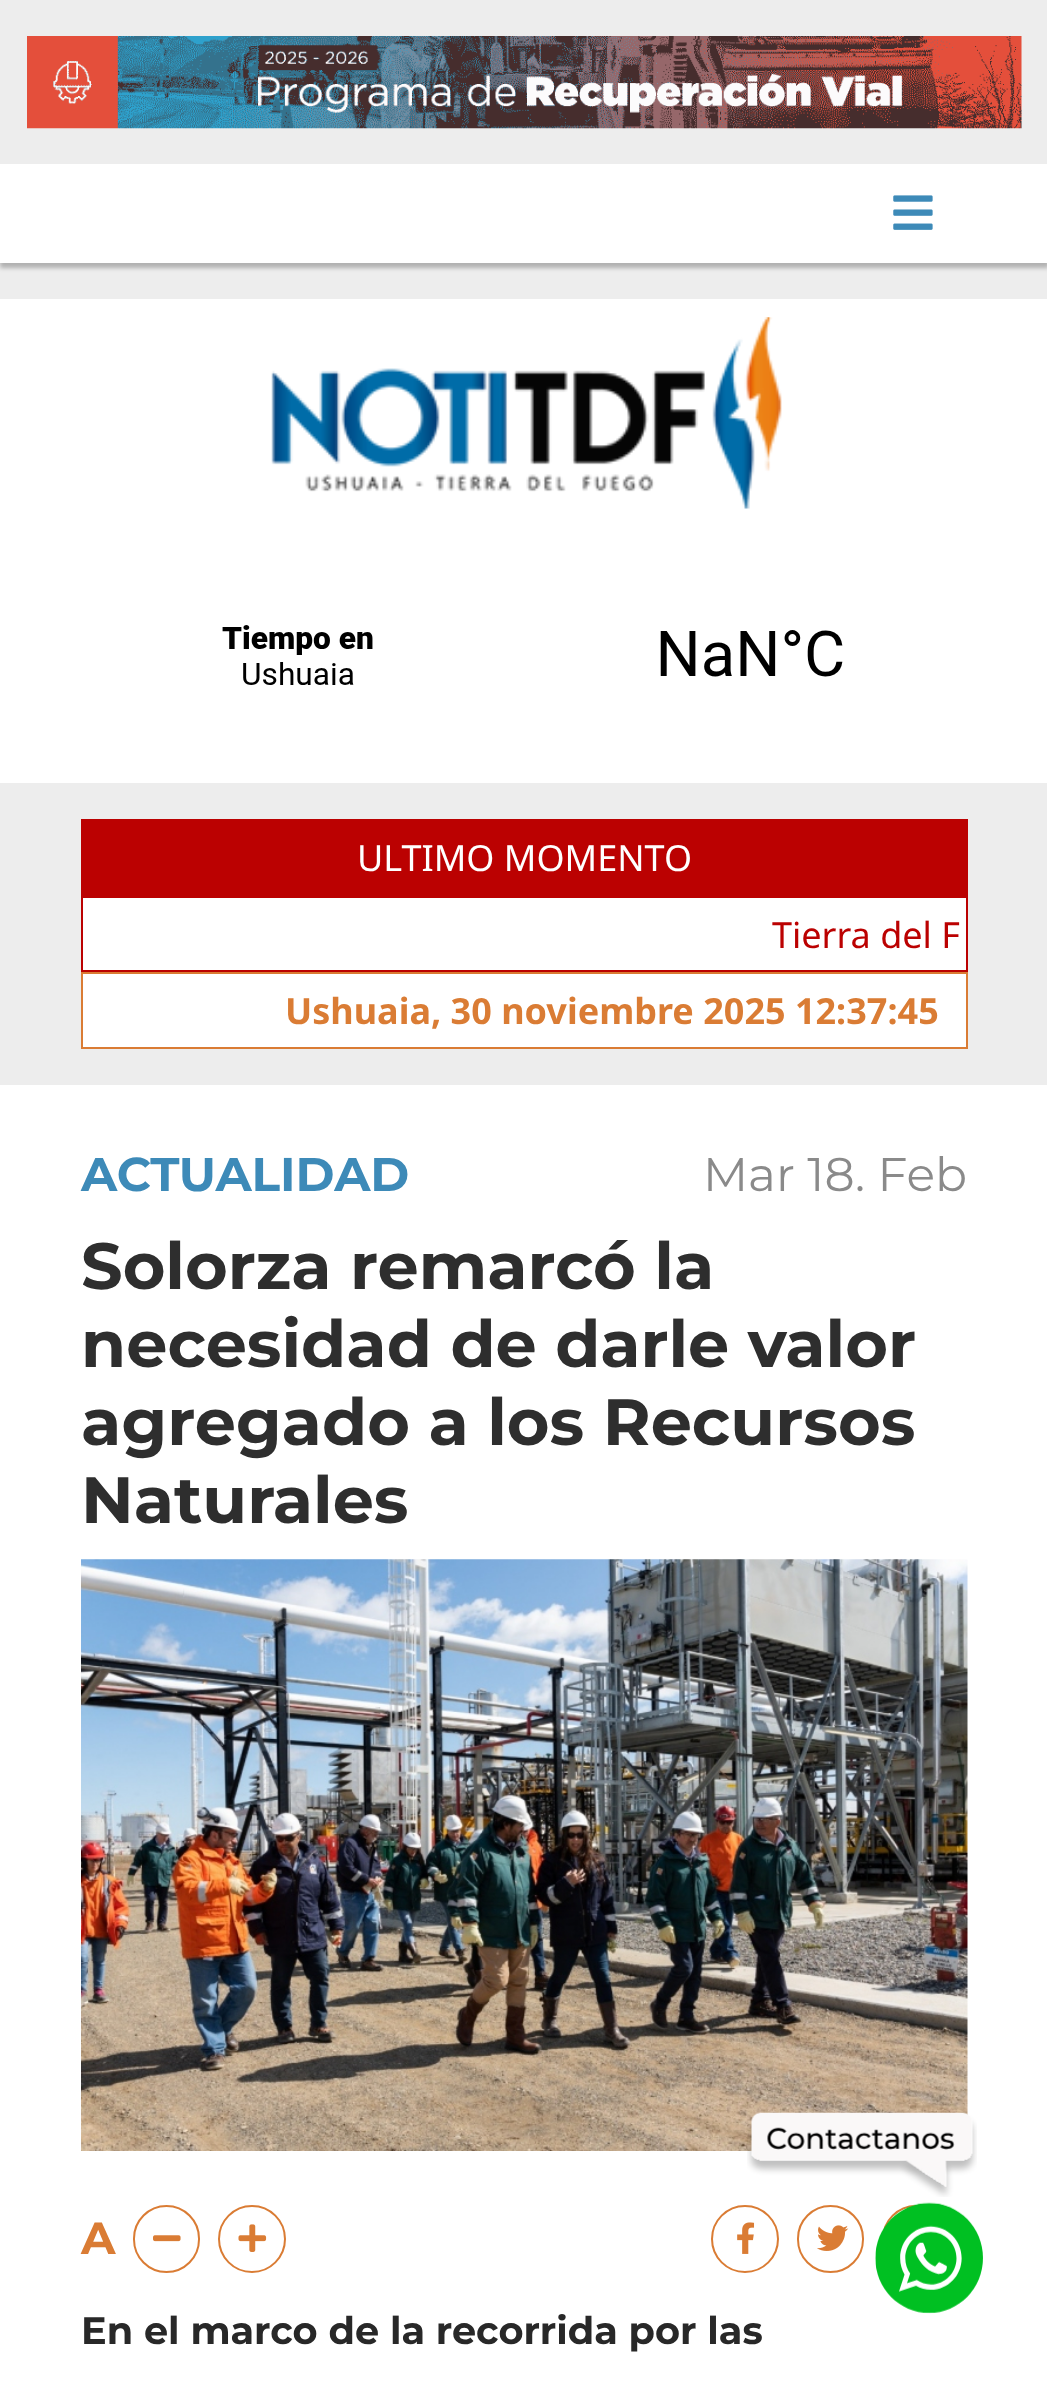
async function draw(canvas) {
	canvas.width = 1047;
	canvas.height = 2381;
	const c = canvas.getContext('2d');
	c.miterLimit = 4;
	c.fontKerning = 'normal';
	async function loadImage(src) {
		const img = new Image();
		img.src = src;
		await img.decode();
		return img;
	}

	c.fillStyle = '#ededed';
	c.fillRect(0, 0, 1047, 2381);
	c.drawImage(await loadImage('img1.png'), 27, 36, 995, 93);
	c.fillStyle = '#00000040';
	c.filter = 'blur(2px)';
	c.beginPath();
	c.rect(0, 169, 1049, 99);
	c.fill();
	c.filter = 'none';
	c.fillStyle = '#fff';
	c.fillRect(0, 164, 1047, 99);
	c.drawImage(await loadImage('img2.png'), 893, 195, 40, 35);
	c.fillRect(0, 299, 1047, 484);
	c.drawImage(await loadImage('img3.png'), 271, 317, 511, 192);
	c.drawImage(await loadImage('img4.png'), 222, 625, 621, 60);
	c.fillRect(83, 898, 883, 149);
	c.fillStyle = '#bb0101';
	c.fillRect(81, 819, 887, 77);
	c.font = '36px Noto Sans';
	c.fillStyle = '#fff';
	c.fillText('ULTIMO MOMENTO', 357, 871);
	c.strokeStyle = '#bb0101';
	c.lineWidth = 2;
	c.strokeRect(82, 897, 885, 74);
	c.fillStyle = '#bb0101';
	c.fillText('Tierra del F', 772, 948);
	c.strokeStyle = '#da7c34';
	c.strokeRect(82, 973, 885, 75);
	c.font = 'bold 36px Noto Sans';
	c.fillStyle = '#da7c34';
	c.fillText('Ushuaia, 30 noviembre 2025 12:37:45', 285, 1024);
	c.fillStyle = '#fff';
	c.fillRect(0, 1085, 1047, 1296);
	c.font = 'bold 47.25px Montserrat';
	c.fillStyle = '#3d8ab8';
	c.fillText('ACTUALIDAD', 81, 1191);
	c.font = '47.25px Montserrat';
	c.fillStyle = '#8a8a8a';
	c.fillText('Mar 18. Feb', 703, 1191);
	c.font = 'bold 65.25px Montserrat';
	c.fillStyle = '#2e2e2e';
	for (const [text, x, y] of [
		['Solorza remarcó la', 81, 1289],
		['necesidad de darle valor', 81, 1367],
		['agregado a los Recursos', 81, 1445],
		['Naturales', 81, 1523],
	]) {
		c.fillText(text, x, y);
	}
	c.drawImage(await loadImage('img5.png'), 81, 1559, 887, 592);
	c.font = 'bold 45px Montserrat';
	c.fillStyle = '#da7c34';
	c.fillText('A', 81, 2254);
	c.beginPath();
	c.roundRect(134, 2206, 65, 66, 32.5);
	c.stroke();
	c.drawImage(await loadImage('img6.png'), 153, 2235, 28, 7);
	c.beginPath();
	c.arc(252, 2239, 33, 0, 2 * Math.PI);
	c.stroke();
	c.drawImage(await loadImage('img7.png'), 238, 2224, 29, 28);
	c.beginPath();
	c.arc(745, 2239, 33, 0, 2 * Math.PI);
	c.stroke();
	c.drawImage(await loadImage('img8.png'), 737, 2222, 18, 32);
	c.beginPath();
	c.roundRect(798, 2206, 65, 66, 32.5);
	c.stroke();
	c.drawImage(await loadImage('img9.png'), 817, 2225, 32, 26);
	c.beginPath();
	c.arc(916, 2239, 33, 0, 2 * Math.PI);
	c.stroke();
	c.font = 'bold 38.25px Montserrat';
	c.fillStyle = '#282828';
	c.fillText('En el marco de la recorrida por las', 81, 2344);
	c.drawImage(await loadImage('img10.png'), 747, 2112, 230, 85);
	c.drawImage(await loadImage('img11.png'), 875, 2202, 108, 112);
}

draw(document.querySelector('canvas'));
